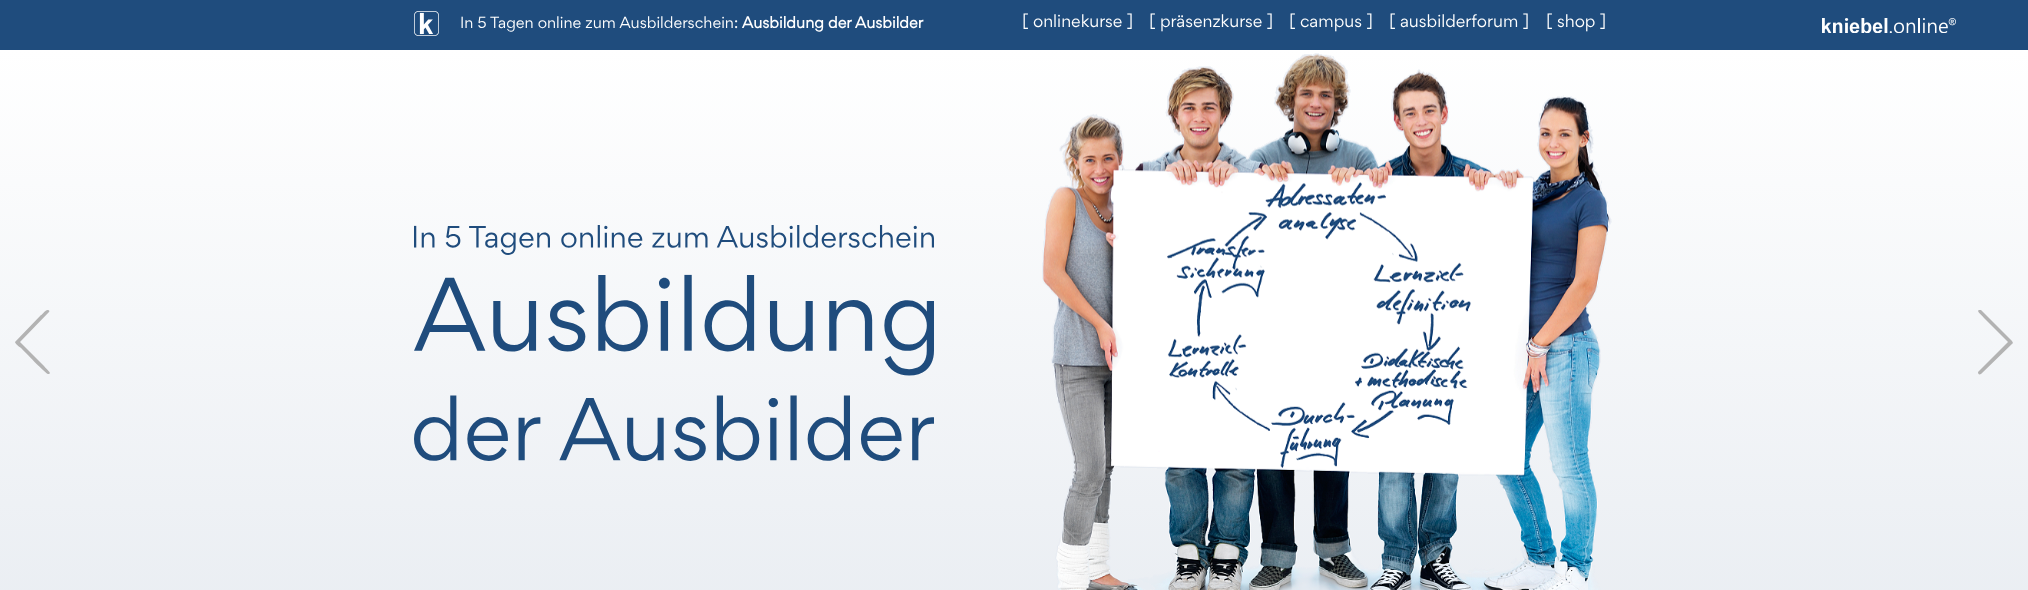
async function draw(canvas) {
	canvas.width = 2028;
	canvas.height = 590;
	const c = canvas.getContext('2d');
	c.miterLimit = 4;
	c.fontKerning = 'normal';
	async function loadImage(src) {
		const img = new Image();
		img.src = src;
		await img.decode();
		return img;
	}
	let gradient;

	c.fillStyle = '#1f4c7d';
	c.fillRect(0, 0, 2028, 590);
	c.drawImage(await loadImage('img1.png'), 414, 11, 25, 25);
	c.font = '14.4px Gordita';
	c.fillStyle = '#fff';
	c.fillText('In 5 Tagen online zum Ausbilderschein:', 460, 28);
	c.font = 'bold 14.4px Gordita';
	c.fillText('Ausbildung der Ausbilder', 742, 28);
	c.font = '15.75px Gordita';
	for (const [text, x, y] of [
		['[ onlinekurse ]', 1022, 27],
		['[ präsenzkurse ]', 1149, 27],
		['[ campus ]', 1289, 27],
		['[ ausbilderforum ]', 1389, 27],
		['[ shop ]', 1546, 27],
	]) {
		c.fillText(text, x, y);
	}
	c.drawImage(await loadImage('img2.png'), 1822, 18, 134, 15);
	gradient = c.createLinearGradient(1014, 50, 1014, 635);
	gradient.addColorStop(0, '#fff');
	gradient.addColorStop(1, '#e9edf2');
	c.fillStyle = gradient;
	c.fillRect(0, 50, 2028, 540);
	c.drawImage(await loadImage('img3.png'), 414, 225, 520, 236);
	c.drawImage(await loadImage('img4.png'), 1042, 53, 570, 537);
	c.fillStyle = '#b3b3b3';
	c.beginPath();
	c.moveTo(20, 342);
	c.lineTo(49, 312);
	c.bezierCurveTo(50, 311, 49, 310, 48, 310);
	c.bezierCurveTo(46, 309, 42, 315, 41, 315);
	c.lineTo(15, 342);
	c.bezierCurveTo(15, 344, 21, 348, 21, 348);
	c.bezierCurveTo(24, 351, 46, 374, 48, 374);
	c.lineTo(49, 374);
	c.bezierCurveTo(52, 373, 47, 370, 44, 366);
	c.closePath();
	c.fill();
	c.beginPath();
	c.moveTo(2012, 341);
	c.lineTo(1981, 310);
	c.lineTo(1979, 310);
	c.bezierCurveTo(1976, 311, 1981, 314, 1984, 318);
	c.lineTo(2008, 342);
	c.lineTo(1978, 372);
	c.bezierCurveTo(1978, 374, 1979, 375, 1981, 374);
	c.lineTo(2013, 343);
	c.closePath();
	c.fill();
}

draw(document.querySelector('canvas'));
